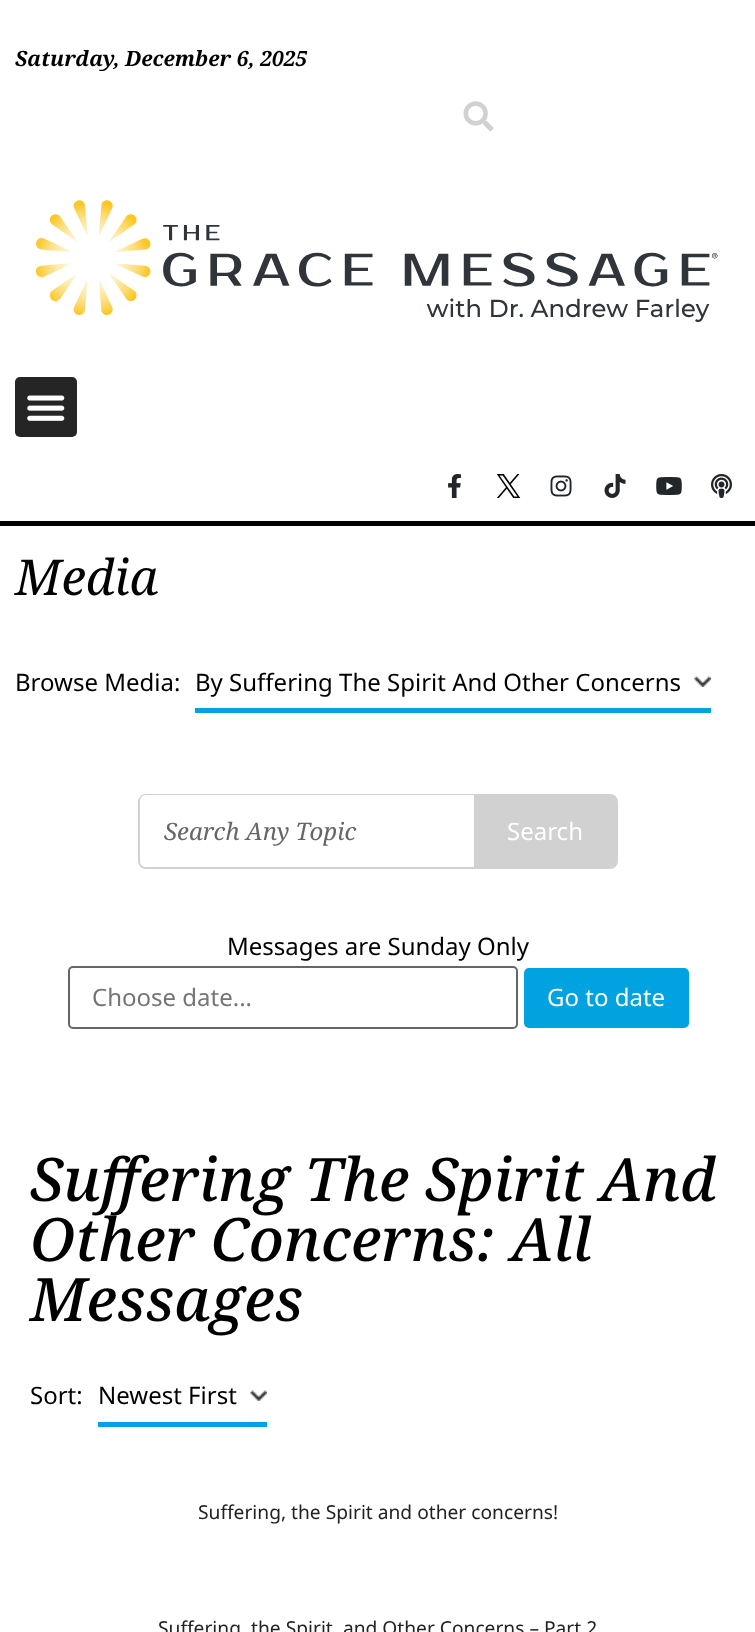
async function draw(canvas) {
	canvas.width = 755;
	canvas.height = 1632;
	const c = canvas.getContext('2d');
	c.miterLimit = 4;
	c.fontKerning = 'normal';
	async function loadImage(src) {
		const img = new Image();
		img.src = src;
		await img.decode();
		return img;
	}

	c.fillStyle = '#fff';
	c.fillRect(0, 0, 755, 1632);
	c.font = 'italic bold 21px Noto Serif';
	c.fillStyle = '#000';
	c.fillText('Saturday, December 6, 2025', 15, 66);
	c.drawImage(await loadImage('img1.png'), 463, 101, 31, 31);
	c.drawImage(await loadImage('img2.png'), 35, 200, 683, 122);
	c.fillRect(0, 521, 755, 5);
	c.fillStyle = '#252525';
	c.beginPath();
	c.roundRect(15, 377, 62, 60, 5);
	c.fill();
	c.drawImage(await loadImage('img3.png'), 27, 395, 38, 26);
	c.drawImage(await loadImage('img4.png'), 448, 474, 13, 24);
	c.drawImage(await loadImage('img5.png'), 497, 474, 24, 24);
	c.drawImage(await loadImage('img6.png'), 550, 475, 22, 22);
	c.drawImage(await loadImage('img7.png'), 604, 474, 22, 24);
	c.drawImage(await loadImage('img8.png'), 656, 477, 26, 18);
	c.drawImage(await loadImage('img9.png'), 711, 474, 21, 24);
	c.font = 'italic 49.5px Noto Serif';
	c.fillStyle = '#000';
	c.fillText('Media', 15, 595);
	c.font = '24px Noto Sans';
	c.fillText('Browse Media:', 15, 691);
	c.drawImage(await loadImage('img10.png'), 694, 676, 17, 11);
	c.fillText('By Suffering The Spirit And Other Concerns', 195, 691);
	c.fillStyle = '#00a3df';
	c.fillRect(195, 708, 516, 5);
	c.beginPath();
	c.roundRect(139, 795, 478, 73, 7);
	c.strokeStyle = '#d2d1d1';
	c.lineWidth = 2;
	c.stroke();
	c.fillStyle = '#fff';
	c.beginPath();
	c.roundRect(140, 795, 334, 72, [6, 0, 0, 6]);
	c.fill();
	c.font = 'italic 24px Noto Serif';
	c.fillStyle = '#666';
	c.fillText('Search Any Topic', 164, 840);
	c.fillStyle = '#d2d1d1';
	c.beginPath();
	c.roundRect(474, 795, 143, 72, [0, 6, 6, 0]);
	c.fill();
	c.font = '24px Noto Sans';
	c.fillStyle = '#fff';
	c.fillText('Search', 507, 840);
	c.fillStyle = '#000';
	c.fillText('Messages are Sunday Only', 227, 955);
	c.beginPath();
	c.roundRect(69, 967, 448, 61, 4);
	c.strokeStyle = '#666';
	c.stroke();
	c.fillStyle = '#757575';
	c.fillText('Choose date...', 92, 1006);
	c.fillStyle = '#00a3df';
	c.beginPath();
	c.roundRect(524, 968, 165, 60, 5);
	c.fill();
	c.fillStyle = '#fff';
	c.fillText('Go to date', 547, 1006);
	c.font = 'italic 500 60px Noto Serif';
	c.fillStyle = '#000';
	for (const [text, x, y] of [
		['Suffering The Spirit And', 30, 1201],
		['Other Concerns: All', 30, 1261],
		['Messages', 30, 1321],
	]) {
		c.fillText(text, x, y);
	}
	c.font = '24px Noto Sans';
	c.fillText('Sort:', 30, 1404);
	c.drawImage(await loadImage('img11.png'), 250, 1390, 17, 11);
	c.fillText('Newest First', 98, 1404);
	c.fillStyle = '#00a3df';
	c.fillRect(98, 1422, 169, 5);
	c.font = '19.2px Noto Sans';
	c.fillStyle = '#222';
	c.fillText('Suffering, the Spirit and other concerns!', 198, 1519);
	c.fillText('Suffering, the Spirit, and Other Concerns – Part 2', 158, 1635);
}

draw(document.querySelector('canvas'));
